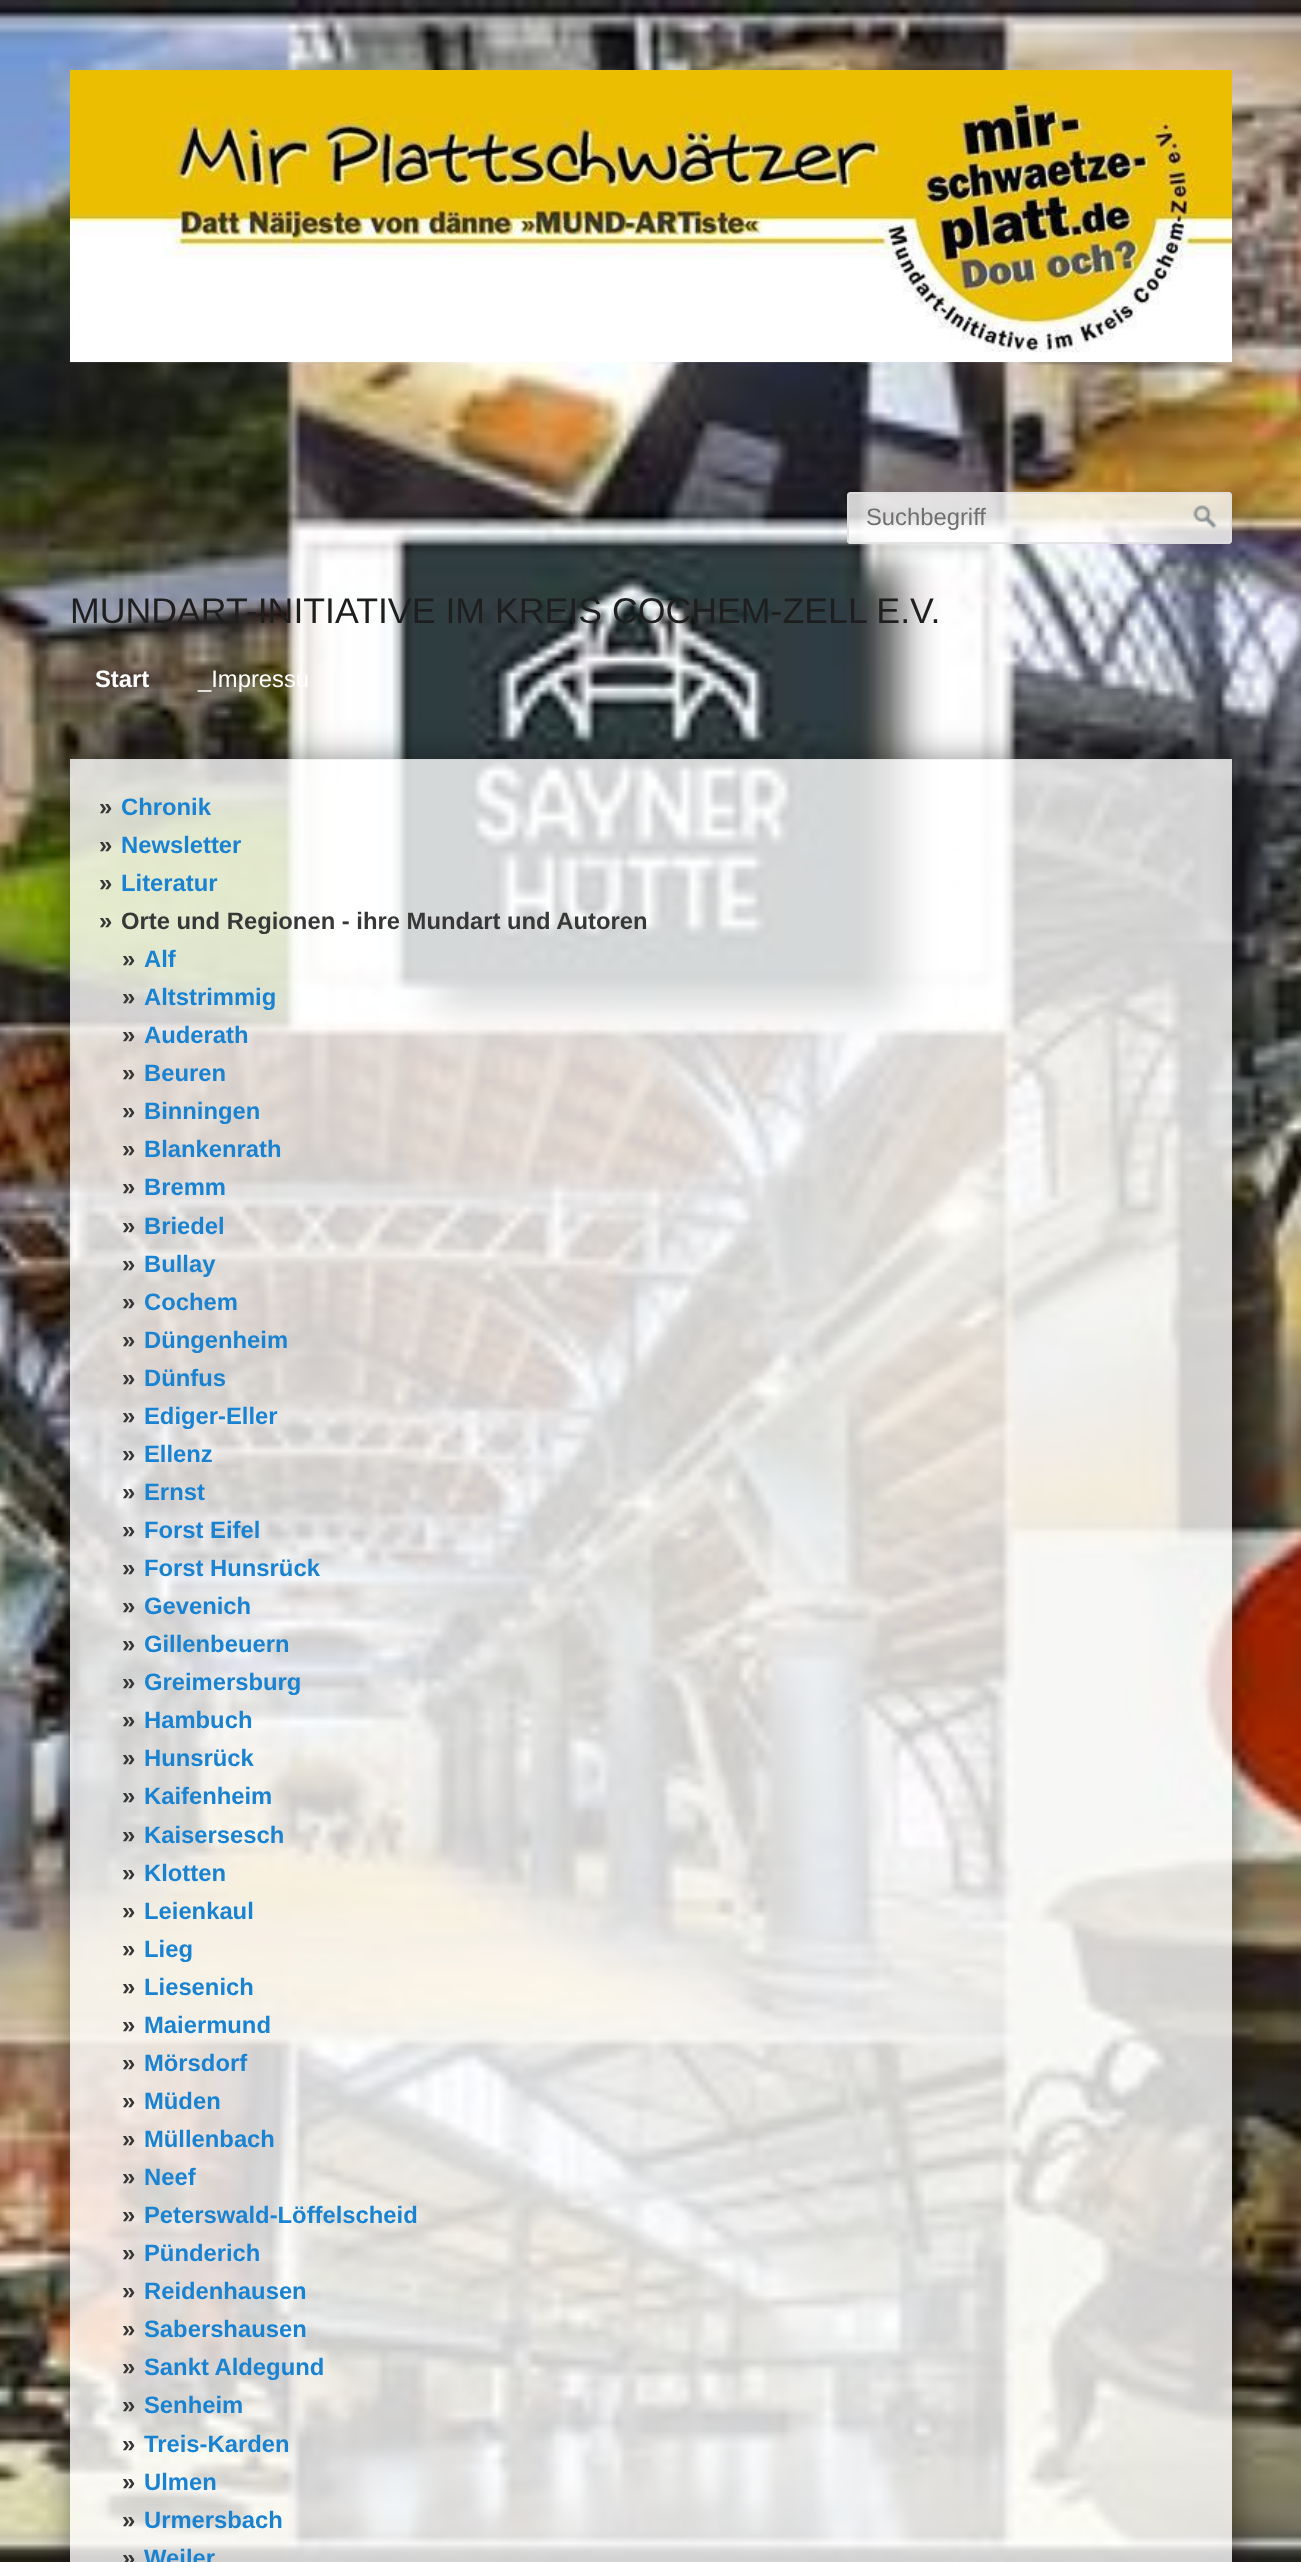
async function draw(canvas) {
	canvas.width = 1301;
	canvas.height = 2562;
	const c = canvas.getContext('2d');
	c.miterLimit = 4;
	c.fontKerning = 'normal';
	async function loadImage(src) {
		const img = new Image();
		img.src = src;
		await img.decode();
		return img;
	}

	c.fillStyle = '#fff';
	c.fillRect(0, 0, 1301, 2562);
	c.drawImage(await loadImage('img1.png'), 0, 0, 1301, 2562);
	c.drawImage(await loadImage('img2.png'), 70, 70, 1162, 293);
	c.fillStyle = '#ffffffcc';
	c.beginPath();
	c.roundRect(847, 492, 385, 52, 4);
	c.fill();
	c.beginPath();
	c.roundRect(848, 493, 383, 50, 3);
	c.strokeStyle = '#ddddddcc';
	c.lineWidth = 2;
	c.stroke();
	c.font = '23.8px Liberation Sans';
	c.fillStyle = '#6f6f6f';
	c.fillText('Suchbegriff', 866, 525);
	c.drawImage(await loadImage('img3.png'), 1193, 505, 24, 24);
	c.font = '35.7px Liberation Sans';
	c.fillStyle = '#1e1e1e';
	c.fillText('MUNDART-INITIATIVE IM KREIS COCHEM-ZELL E.V.', 70, 623);
	c.font = 'bold 23.8px Liberation Sans';
	c.fillStyle = '#fff';
	c.fillText('Start', 95, 687);
	c.font = '23.8px Liberation Sans';
	c.fillText('_Impressu', 198, 687);
	c.save();
	c.beginPath();
	c.moveTo(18, 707);
	c.lineTo(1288, 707);
	c.lineTo(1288, 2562);
	c.lineTo(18, 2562);
	c.closePath();
	c.moveTo(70, 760);
	c.lineTo(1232, 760);
	c.lineTo(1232, 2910);
	c.lineTo(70, 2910);
	c.closePath();
	c.clip('evenodd');
	c.fillStyle = '#00000080';
	c.filter = 'blur(17.5px)';
	c.beginPath();
	c.rect(72, 761, 1162, 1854);
	c.fill();
	c.filter = 'none';
	c.restore();
	c.fillStyle = '#ffffffcc';
	c.fillRect(70, 759, 1162, 1803);
	c.font = 'bold 23.8px Liberation Sans';
	c.fillStyle = '#373737';
	c.fillText('»', 99, 815);
	c.fillStyle = '#1982d1';
	c.fillText('Chronik', 121, 815);
	c.fillStyle = '#373737';
	c.fillText('»', 99, 853);
	c.fillStyle = '#1982d1';
	c.fillText('Newsletter', 121, 853);
	c.fillStyle = '#373737';
	c.fillText('»', 99, 891);
	c.fillStyle = '#1982d1';
	c.fillText('Literatur', 121, 891);
	c.fillStyle = '#373737';
	for (const [text, x, y] of [
		['»', 99, 929],
		['Orte und Regionen - ihre Mundart und Autoren', 121, 929],
		['»', 122, 967],
	]) {
		c.fillText(text, x, y);
	}
	c.fillStyle = '#1982d1';
	c.fillText('Alf', 144, 967);
	c.fillStyle = '#373737';
	c.fillText('»', 122, 1005);
	c.fillStyle = '#1982d1';
	c.fillText('Altstrimmig', 144, 1005);
	c.fillStyle = '#373737';
	c.fillText('»', 122, 1043);
	c.fillStyle = '#1982d1';
	c.fillText('Auderath', 144, 1043);
	c.fillStyle = '#373737';
	c.fillText('»', 122, 1081);
	c.fillStyle = '#1982d1';
	c.fillText('Beuren', 144, 1081);
	c.fillStyle = '#373737';
	c.fillText('»', 122, 1119);
	c.fillStyle = '#1982d1';
	c.fillText('Binningen', 144, 1119);
	c.fillStyle = '#373737';
	c.fillText('»', 122, 1157);
	c.fillStyle = '#1982d1';
	c.fillText('Blankenrath', 144, 1157);
	c.fillStyle = '#373737';
	c.fillText('»', 122, 1195);
	c.fillStyle = '#1982d1';
	c.fillText('Bremm', 144, 1195);
	c.fillStyle = '#373737';
	c.fillText('»', 122, 1234);
	c.fillStyle = '#1982d1';
	c.fillText('Briedel', 144, 1234);
	c.fillStyle = '#373737';
	c.fillText('»', 122, 1272);
	c.fillStyle = '#1982d1';
	c.fillText('Bullay', 144, 1272);
	c.fillStyle = '#373737';
	c.fillText('»', 122, 1310);
	c.fillStyle = '#1982d1';
	c.fillText('Cochem', 144, 1310);
	c.fillStyle = '#373737';
	c.fillText('»', 122, 1348);
	c.fillStyle = '#1982d1';
	c.fillText('Düngenheim', 144, 1348);
	c.fillStyle = '#373737';
	c.fillText('»', 122, 1386);
	c.fillStyle = '#1982d1';
	c.fillText('Dünfus', 144, 1386);
	c.fillStyle = '#373737';
	c.fillText('»', 122, 1424);
	c.fillStyle = '#1982d1';
	c.fillText('Ediger-Eller', 144, 1424);
	c.fillStyle = '#373737';
	c.fillText('»', 122, 1462);
	c.fillStyle = '#1982d1';
	c.fillText('Ellenz', 144, 1462);
	c.fillStyle = '#373737';
	c.fillText('»', 122, 1500);
	c.fillStyle = '#1982d1';
	c.fillText('Ernst', 144, 1500);
	c.fillStyle = '#373737';
	c.fillText('»', 122, 1538);
	c.fillStyle = '#1982d1';
	c.fillText('Forst Eifel', 144, 1538);
	c.fillStyle = '#373737';
	c.fillText('»', 122, 1576);
	c.fillStyle = '#1982d1';
	c.fillText('Forst Hunsrück', 144, 1576);
	c.fillStyle = '#373737';
	c.fillText('»', 122, 1614);
	c.fillStyle = '#1982d1';
	c.fillText('Gevenich', 144, 1614);
	c.fillStyle = '#373737';
	c.fillText('»', 122, 1652);
	c.fillStyle = '#1982d1';
	c.fillText('Gillenbeuern', 144, 1652);
	c.fillStyle = '#373737';
	c.fillText('»', 122, 1690);
	c.fillStyle = '#1982d1';
	c.fillText('Greimersburg', 144, 1690);
	c.fillStyle = '#373737';
	c.fillText('»', 122, 1728);
	c.fillStyle = '#1982d1';
	c.fillText('Hambuch', 144, 1728);
	c.fillStyle = '#373737';
	c.fillText('»', 122, 1766);
	c.fillStyle = '#1982d1';
	c.fillText('Hunsrück', 144, 1766);
	c.fillStyle = '#373737';
	c.fillText('»', 122, 1804);
	c.fillStyle = '#1982d1';
	c.fillText('Kaifenheim', 144, 1804);
	c.fillStyle = '#373737';
	c.fillText('»', 122, 1843);
	c.fillStyle = '#1982d1';
	c.fillText('Kaisersesch', 144, 1843);
	c.fillStyle = '#373737';
	c.fillText('»', 122, 1881);
	c.fillStyle = '#1982d1';
	c.fillText('Klotten', 144, 1881);
	c.fillStyle = '#373737';
	c.fillText('»', 122, 1919);
	c.fillStyle = '#1982d1';
	c.fillText('Leienkaul', 144, 1919);
	c.fillStyle = '#373737';
	c.fillText('»', 122, 1957);
	c.fillStyle = '#1982d1';
	c.fillText('Lieg', 144, 1957);
	c.fillStyle = '#373737';
	c.fillText('»', 122, 1995);
	c.fillStyle = '#1982d1';
	c.fillText('Liesenich', 144, 1995);
	c.fillStyle = '#373737';
	c.fillText('»', 122, 2033);
	c.fillStyle = '#1982d1';
	c.fillText('Maiermund', 144, 2033);
	c.fillStyle = '#373737';
	c.fillText('»', 122, 2071);
	c.fillStyle = '#1982d1';
	c.fillText('Mörsdorf', 144, 2071);
	c.fillStyle = '#373737';
	c.fillText('»', 122, 2109);
	c.fillStyle = '#1982d1';
	c.fillText('Müden', 144, 2109);
	c.fillStyle = '#373737';
	c.fillText('»', 122, 2147);
	c.fillStyle = '#1982d1';
	c.fillText('Müllenbach', 144, 2147);
	c.fillStyle = '#373737';
	c.fillText('»', 122, 2185);
	c.fillStyle = '#1982d1';
	c.fillText('Neef', 144, 2185);
	c.fillStyle = '#373737';
	c.fillText('»', 122, 2223);
	c.fillStyle = '#1982d1';
	c.fillText('Peterswald-Löffelscheid', 144, 2223);
	c.fillStyle = '#373737';
	c.fillText('»', 122, 2261);
	c.fillStyle = '#1982d1';
	c.fillText('Pünderich', 144, 2261);
	c.fillStyle = '#373737';
	c.fillText('»', 122, 2299);
	c.fillStyle = '#1982d1';
	c.fillText('Reidenhausen', 144, 2299);
	c.fillStyle = '#373737';
	c.fillText('»', 122, 2337);
	c.fillStyle = '#1982d1';
	c.fillText('Sabershausen', 144, 2337);
	c.fillStyle = '#373737';
	c.fillText('»', 122, 2375);
	c.fillStyle = '#1982d1';
	c.fillText('Sankt Aldegund', 144, 2375);
	c.fillStyle = '#373737';
	c.fillText('»', 122, 2413);
	c.fillStyle = '#1982d1';
	c.fillText('Senheim', 144, 2413);
	c.fillStyle = '#373737';
	c.fillText('»', 122, 2452);
	c.fillStyle = '#1982d1';
	c.fillText('Treis-Karden', 144, 2452);
	c.fillStyle = '#373737';
	c.fillText('»', 122, 2490);
	c.fillStyle = '#1982d1';
	c.fillText('Ulmen', 144, 2490);
	c.fillStyle = '#373737';
	c.fillText('»', 122, 2528);
	c.fillStyle = '#1982d1';
	c.fillText('Urmersbach', 144, 2528);
	c.fillStyle = '#373737';
	c.fillText('»', 122, 2566);
	c.fillStyle = '#1982d1';
	c.fillText('Weiler', 144, 2566);
}

draw(document.querySelector('canvas'));
